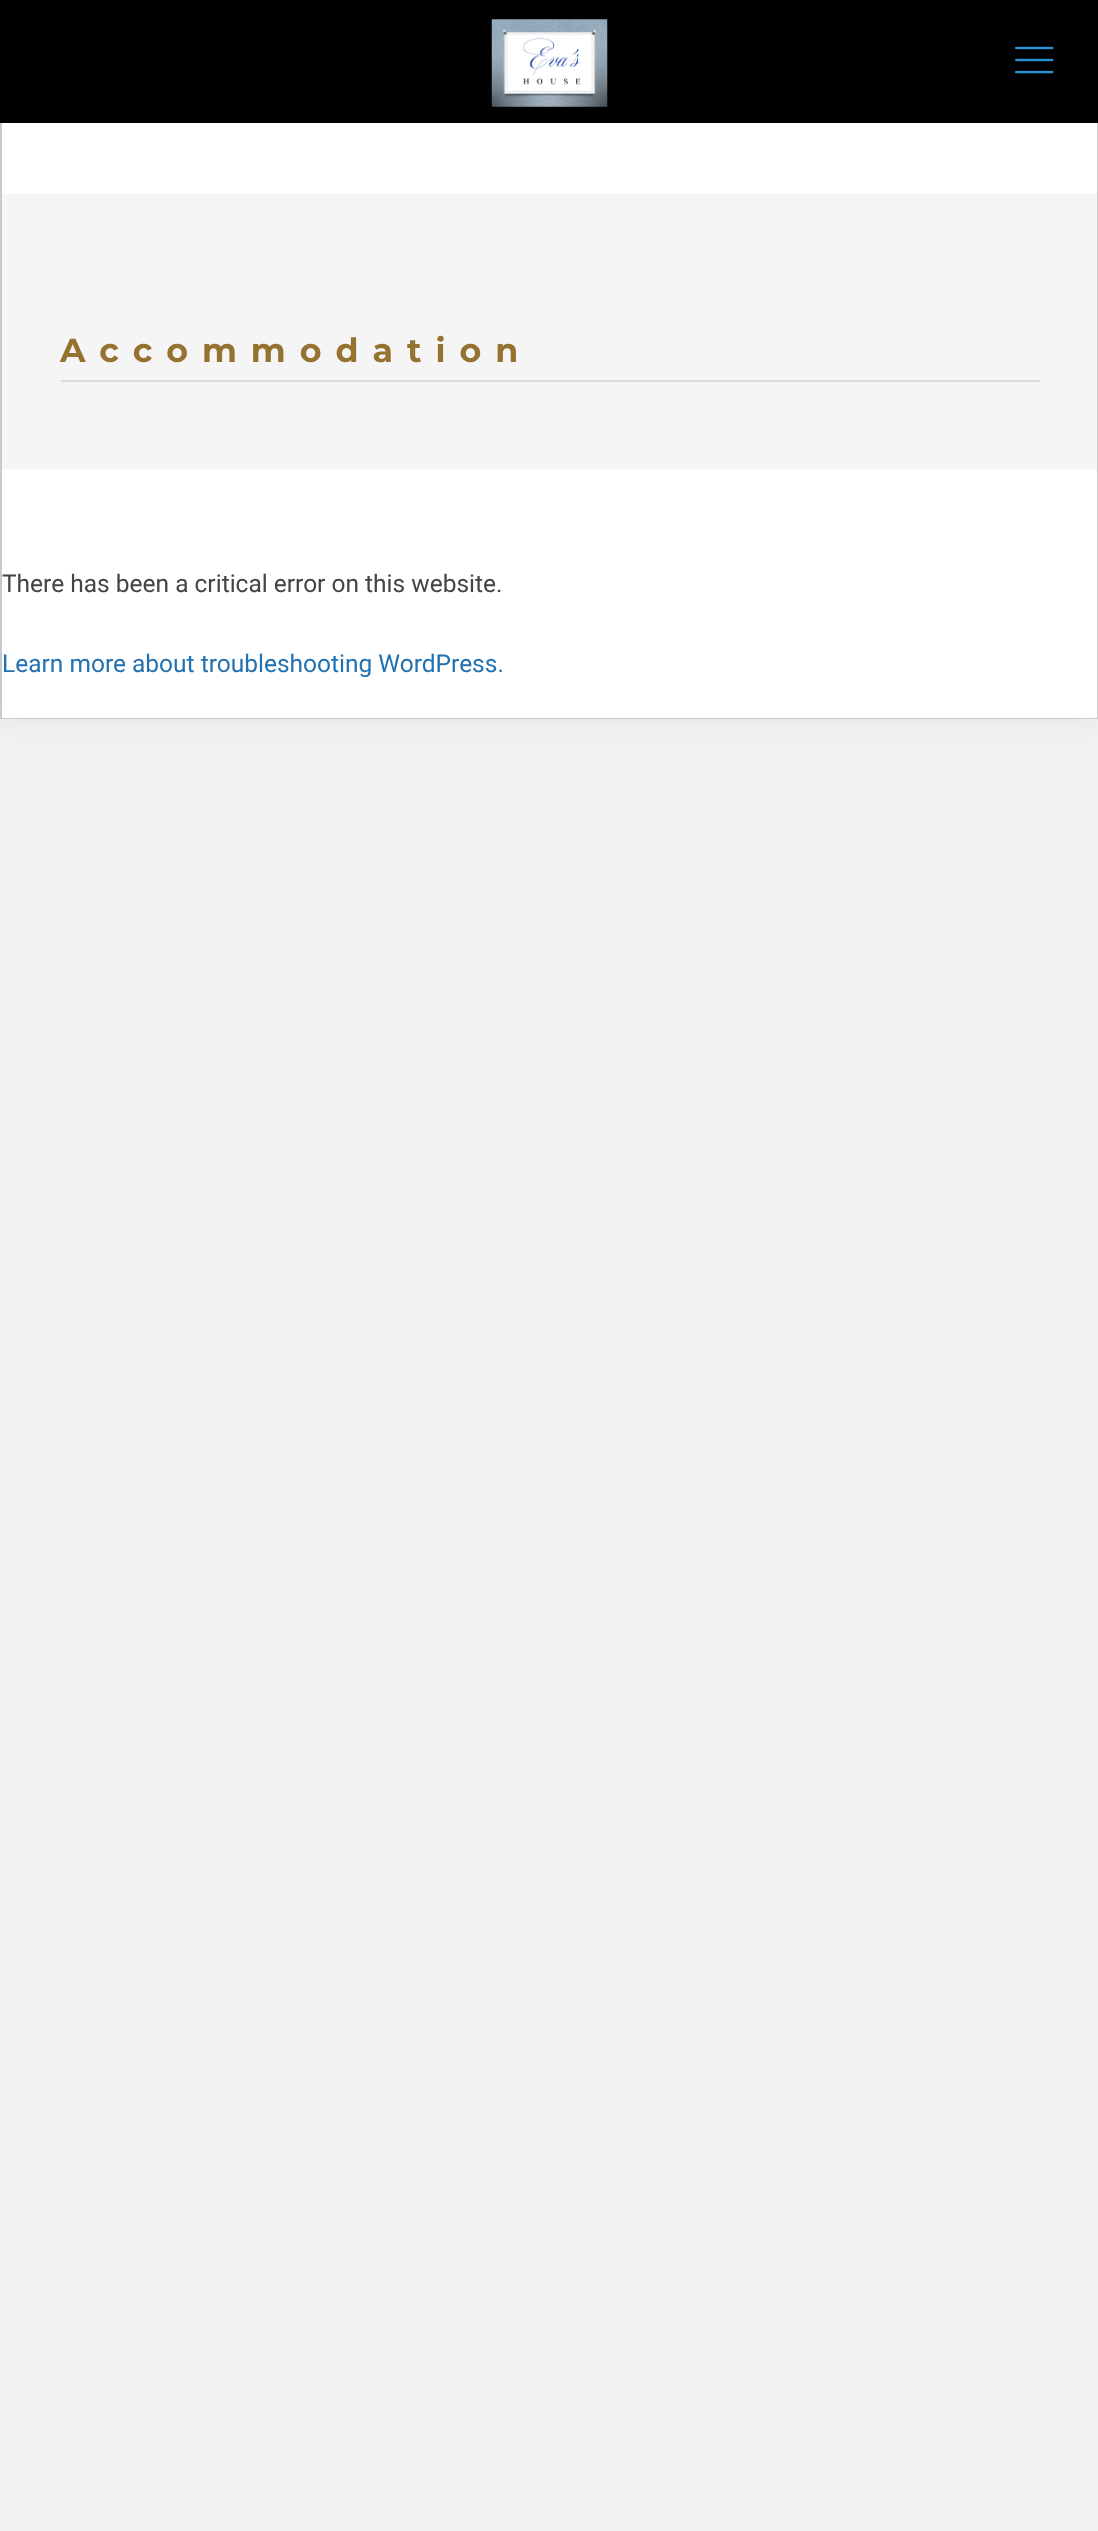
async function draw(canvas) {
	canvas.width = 1098;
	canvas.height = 2531;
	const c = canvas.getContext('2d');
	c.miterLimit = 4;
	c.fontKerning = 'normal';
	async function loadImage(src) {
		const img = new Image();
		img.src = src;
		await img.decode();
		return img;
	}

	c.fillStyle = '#f1f1f1';
	c.fillRect(0, 0, 1098, 2531);
	c.strokeStyle = '#ccd0d4';
	c.lineWidth = 2;
	c.strokeRect(1, 89, 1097, 629);
	c.fillStyle = '#0000000f';
	c.filter = 'blur(13px)';
	c.beginPath();
	c.rect(2, 89, 1095, 629);
	c.fill();
	c.filter = 'none';
	c.fillStyle = '#000';
	c.fillRect(0, 0, 1098, 123);
	c.drawImage(await loadImage('img1.png'), 491, 19, 117, 88);
	c.drawImage(await loadImage('img2.png'), 1015, 46, 39, 28);
	for (const [x, y, w, h, color] of [
		[2, 123, 1095, 595, '#fff'],
		[2, 194, 1095, 275, '#f5f5f5'],
		[61, 380, 979, 2, '#dadada'],
	]) {
		c.fillStyle = color;
		c.fillRect(x, y, w, h);
	}
	c.letterSpacing = '14px';
	c.font = 'bold 33.25px Montserrat';
	c.fillStyle = '#957230';
	c.fillText('Accommodation', 60, 362);
	c.letterSpacing = '0px';
	c.font = '24.5px Roboto';
	c.fillStyle = '#444';
	c.fillText('There has been a critical error on this website.', 2, 592);
	c.fillStyle = '#2271b1';
	c.fillText('Learn more about troubleshooting WordPress.', 2, 672);
}

draw(document.querySelector('canvas'));
